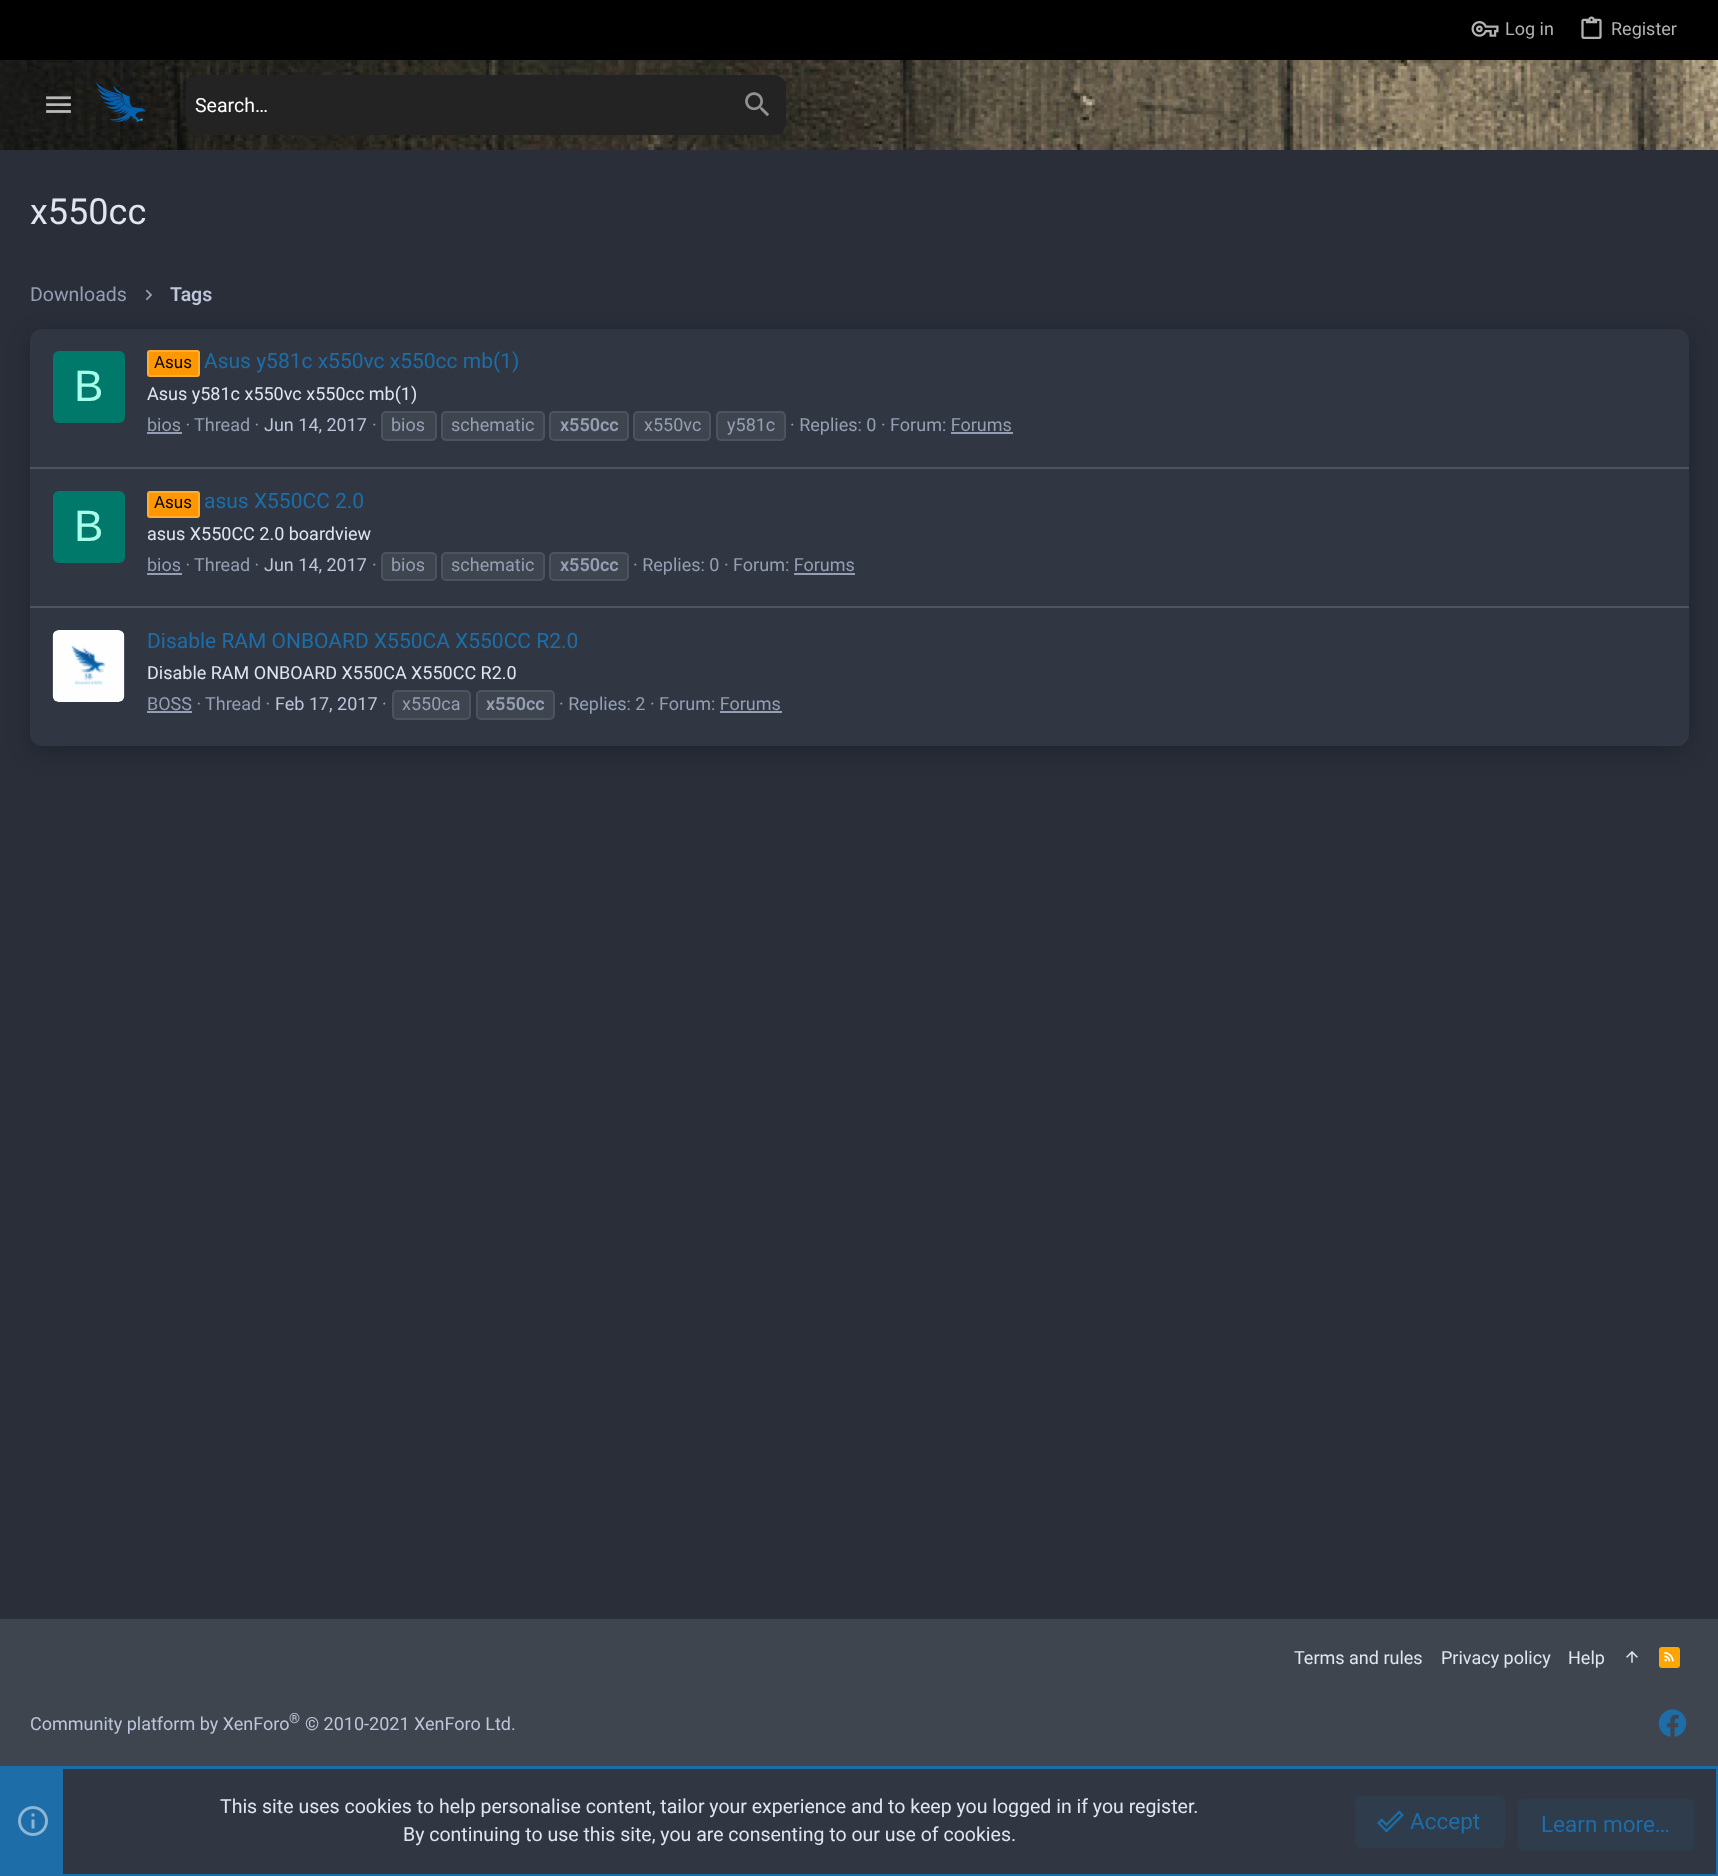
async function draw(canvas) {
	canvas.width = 1718;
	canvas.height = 1876;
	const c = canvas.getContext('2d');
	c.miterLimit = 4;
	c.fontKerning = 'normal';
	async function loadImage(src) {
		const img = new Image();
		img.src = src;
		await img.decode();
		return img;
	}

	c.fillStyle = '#292e39';
	c.fillRect(0, 0, 1718, 1876);
	c.fillStyle = '#000';
	c.fillRect(0, 0, 1718, 60);
	c.drawImage(await loadImage('img1.png'), 1471, 21, 28, 16);
	c.font = '18px Roboto';
	c.fillStyle = '#b3b3b3';
	c.fillText('Log in', 1505, 35);
	c.drawImage(await loadImage('img2.png'), 1581, 16, 21, 23);
	c.fillText('Register', 1611, 35);
	c.drawImage(await loadImage('img3.png'), 0, 60, 1718, 90);
	c.drawImage(await loadImage('img4.png'), 46, 96, 25, 17);
	c.drawImage(await loadImage('img5.png'), 96, 82, 50, 41);
	c.fillStyle = '#232323';
	c.beginPath();
	c.roundRect(186, 75, 600, 60, 12);
	c.fill();
	c.font = '19.5px Roboto';
	c.fillStyle = '#fff';
	c.fillText('Search…', 195, 112);
	c.drawImage(await loadImage('img6.png'), 745, 92, 24, 25);
	c.font = '36px Roboto';
	c.fillStyle = '#e0e6f0';
	c.fillText('x550cc', 30, 224);
	c.fillStyle = '#00000033';
	c.filter = 'blur(11px)';
	c.beginPath();
	c.roundRect(30, 335, 1659, 417, 12);
	c.fill();
	c.filter = 'none';
	c.font = '19.5px Roboto';
	c.fillStyle = '#959fb4';
	c.fillText('Downloads', 30, 301);
	c.drawImage(await loadImage('img7.png'), 145, 289, 8, 12);
	c.font = '600 19.5px Roboto';
	c.fillStyle = '#bdc6db';
	c.fillText('Tags', 170, 301);
	c.fillStyle = '#313742';
	c.beginPath();
	c.roundRect(30, 329, 1659, 417, 12);
	c.fill();
	c.fillStyle = '#00796b';
	c.beginPath();
	c.roundRect(53, 351, 72, 72, 6);
	c.fill();
	c.font = '44px Liberation Sans';
	c.fillStyle = '#a7ffeb';
	c.fillText('B', 74, 401);
	c.fillStyle = '#ff9800';
	c.beginPath();
	c.roundRect(148, 351, 51, 25, 2);
	c.fill();
	c.strokeStyle = '#ffad33';
	c.lineWidth = 2;
	c.stroke();
	c.font = '17px Roboto';
	c.fillStyle = '#000';
	c.fillText('Asus', 154, 368);
	c.font = '21px Roboto';
	c.fillStyle = '#1c6da8';
	c.fillText('Asus y581c x550vc x550cc mb(1)', 204, 368);
	c.font = '18px Roboto';
	c.fillStyle = '#e0e6f0';
	c.fillText('Asus y581c x550vc x550cc mb(1)', 147, 400);
	c.fillStyle = '#959fb4';
	c.fillText('bios ·', 147, 431);
	c.fillRect(147, 432, 35, 2);
	c.fillText('Thread ·', 194, 431);
	c.fillStyle = '#bdc6db';
	c.fillText('Jun 14, 2017', 264, 431);
	c.fillStyle = '#959fb4';
	c.fillText('·', 372, 431);
	c.fillStyle = '#3f454f';
	c.beginPath();
	c.roundRect(382, 412, 54, 28, 4);
	c.fill();
	c.strokeStyle = '#4d5460';
	c.stroke();
	c.fillStyle = '#959fb4';
	c.fillText('bios', 391, 431);
	c.fillStyle = '#3f454f';
	c.beginPath();
	c.roundRect(442, 412, 102, 28, 4);
	c.fill();
	c.stroke();
	c.fillStyle = '#959fb4';
	c.fillText('schematic', 451, 431);
	c.fillStyle = '#3f454f';
	c.beginPath();
	c.roundRect(550, 412, 78, 28, 4);
	c.fill();
	c.stroke();
	c.font = '600 18px Roboto';
	c.fillStyle = '#959fb4';
	c.fillText('x550cc', 560, 431);
	c.fillStyle = '#3f454f';
	c.beginPath();
	c.roundRect(634, 412, 76, 28, 4);
	c.fill();
	c.stroke();
	c.font = '18px Roboto';
	c.fillStyle = '#959fb4';
	c.fillText('x550vc', 644, 431);
	c.fillStyle = '#3f454f';
	c.beginPath();
	c.roundRect(717, 412, 68, 28, 4);
	c.fill();
	c.stroke();
	c.fillStyle = '#959fb4';
	c.fillText('y581c', 727, 431);
	c.fillText('· Replies: 0 · Forum: Forums', 790, 431);
	c.fillRect(951, 432, 62, 2);
	c.fillStyle = '#4d5460';
	c.fillRect(30, 467, 1659, 2);
	c.fillStyle = '#00796b';
	c.beginPath();
	c.roundRect(53, 491, 72, 72, 6);
	c.fill();
	c.font = '44px Liberation Sans';
	c.fillStyle = '#a7ffeb';
	c.fillText('B', 74, 541);
	c.fillStyle = '#ff9800';
	c.beginPath();
	c.roundRect(148, 492, 51, 25, 2);
	c.fill();
	c.strokeStyle = '#ffad33';
	c.stroke();
	c.font = '17px Roboto';
	c.fillStyle = '#000';
	c.fillText('Asus', 154, 508);
	c.font = '21px Roboto';
	c.fillStyle = '#1c6da8';
	c.fillText('asus X550CC 2.0', 204, 508);
	c.font = '18px Roboto';
	c.fillStyle = '#e0e6f0';
	c.fillText('asus X550CC 2.0 boardview', 147, 540);
	c.fillStyle = '#959fb4';
	c.fillText('bios ·', 147, 571);
	c.fillRect(147, 573, 35, 2);
	c.fillText('Thread ·', 194, 571);
	c.fillStyle = '#bdc6db';
	c.fillText('Jun 14, 2017', 264, 571);
	c.fillStyle = '#959fb4';
	c.fillText('·', 372, 571);
	c.fillStyle = '#3f454f';
	c.beginPath();
	c.roundRect(382, 553, 54, 27, 4);
	c.fill();
	c.strokeStyle = '#4d5460';
	c.stroke();
	c.fillStyle = '#959fb4';
	c.fillText('bios', 391, 571);
	c.fillStyle = '#3f454f';
	c.beginPath();
	c.roundRect(442, 553, 102, 27, 4);
	c.fill();
	c.stroke();
	c.fillStyle = '#959fb4';
	c.fillText('schematic', 451, 571);
	c.fillStyle = '#3f454f';
	c.beginPath();
	c.roundRect(550, 553, 78, 27, 4);
	c.fill();
	c.stroke();
	c.font = '600 18px Roboto';
	c.fillStyle = '#959fb4';
	c.fillText('x550cc', 560, 571);
	c.font = '18px Roboto';
	c.fillText('· Replies: 0 · Forum: Forums', 633, 571);
	c.fillRect(794, 573, 61, 2);
	c.fillStyle = '#4d5460';
	c.fillRect(30, 606, 1659, 2);
	c.drawImage(await loadImage('img8.png'), 52, 630, 73, 72);
	c.font = '21px Roboto';
	c.fillStyle = '#1c6da8';
	c.fillText('Disable RAM ONBOARD X550CA X550CC R2.0', 147, 648);
	c.font = '18px Roboto';
	c.fillStyle = '#e0e6f0';
	c.fillText('Disable RAM ONBOARD X550CA X550CC R2.0', 147, 679);
	c.fillStyle = '#959fb4';
	c.fillText('BOSS ·', 147, 710);
	c.fillRect(147, 711, 45, 2);
	c.fillText('Thread ·', 205, 710);
	c.fillStyle = '#bdc6db';
	c.fillText('Feb 17, 2017', 275, 710);
	c.fillStyle = '#959fb4';
	c.fillText('·', 382, 710);
	c.fillStyle = '#3f454f';
	c.beginPath();
	c.roundRect(393, 691, 77, 28, 4);
	c.fill();
	c.stroke();
	c.fillStyle = '#959fb4';
	c.fillText('x550ca', 402, 710);
	c.fillStyle = '#3f454f';
	c.beginPath();
	c.roundRect(477, 691, 77, 28, 4);
	c.fill();
	c.stroke();
	c.font = '600 18px Roboto';
	c.fillStyle = '#959fb4';
	c.fillText('x550cc', 486, 710);
	c.font = '18px Roboto';
	c.fillText('· Replies: 2 · Forum: Forums', 559, 710);
	c.fillRect(720, 711, 62, 2);
	c.fillStyle = '#3f454f';
	c.fillRect(0, 1619, 1718, 147);
	c.fillStyle = '#e0e6f0';
	for (const [text, x, y] of [
		['Terms and rules', 1294, 1664],
		['Privacy policy', 1441, 1664],
		['Help', 1568, 1664],
	]) {
		c.fillText(text, x, y);
	}
	c.drawImage(await loadImage('img9.png'), 1626, 1651, 12, 12);
	c.fillStyle = '#ffa500';
	c.beginPath();
	c.roundRect(1659, 1647, 21, 21, 3);
	c.fill();
	c.drawImage(await loadImage('img10.png'), 1664, 1652, 10, 10);
	c.fillStyle = '#bdc6db';
	c.fillText('Community platform by XenForo', 30, 1730);
	c.font = '14px Roboto';
	c.fillText('®', 289, 1723);
	c.font = '18px Roboto';
	c.fillText('© 2010-2021 XenForo Ltd.', 305, 1730);
	c.drawImage(await loadImage('img11.png'), 1658, 1709, 29, 28);
	c.fillStyle = '#313742';
	c.fillRect(63, 1769, 1653, 105);
	c.strokeStyle = '#1c6da8';
	c.lineWidth = 3;
	c.strokeRect(1.5, 1767.5, 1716, 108);
	c.fillStyle = '#1c6da8';
	c.fillRect(3, 1769, 60, 105);
	c.drawImage(await loadImage('img12.png'), 18, 1806, 30, 30);
	c.font = '19.5px Roboto';
	c.fillStyle = '#e0e6f0';
	c.fillText('This site uses cookies to help personalise content, tailor your experience and to keep you logged in if you register.', 220, 1813);
	c.fillText('By continuing to use this site, you are consenting to our use of cookies.', 403, 1841);
	c.fillStyle = '#2f3c4c';
	c.beginPath();
	c.roundRect(1355, 1796, 150, 52, 6);
	c.fill();
	c.drawImage(await loadImage('img13.png'), 1377, 1810, 27, 23);
	c.font = '22.5px Roboto';
	c.fillStyle = '#1c6da8';
	c.fillText('Accept', 1410, 1829);
	c.fillStyle = '#2f3c4c';
	c.beginPath();
	c.roundRect(1518, 1799, 176, 52, 6);
	c.fill();
	c.fillStyle = '#1c6da8';
	c.fillText('Learn more…', 1541, 1832);
}

draw(document.querySelector('canvas'));
